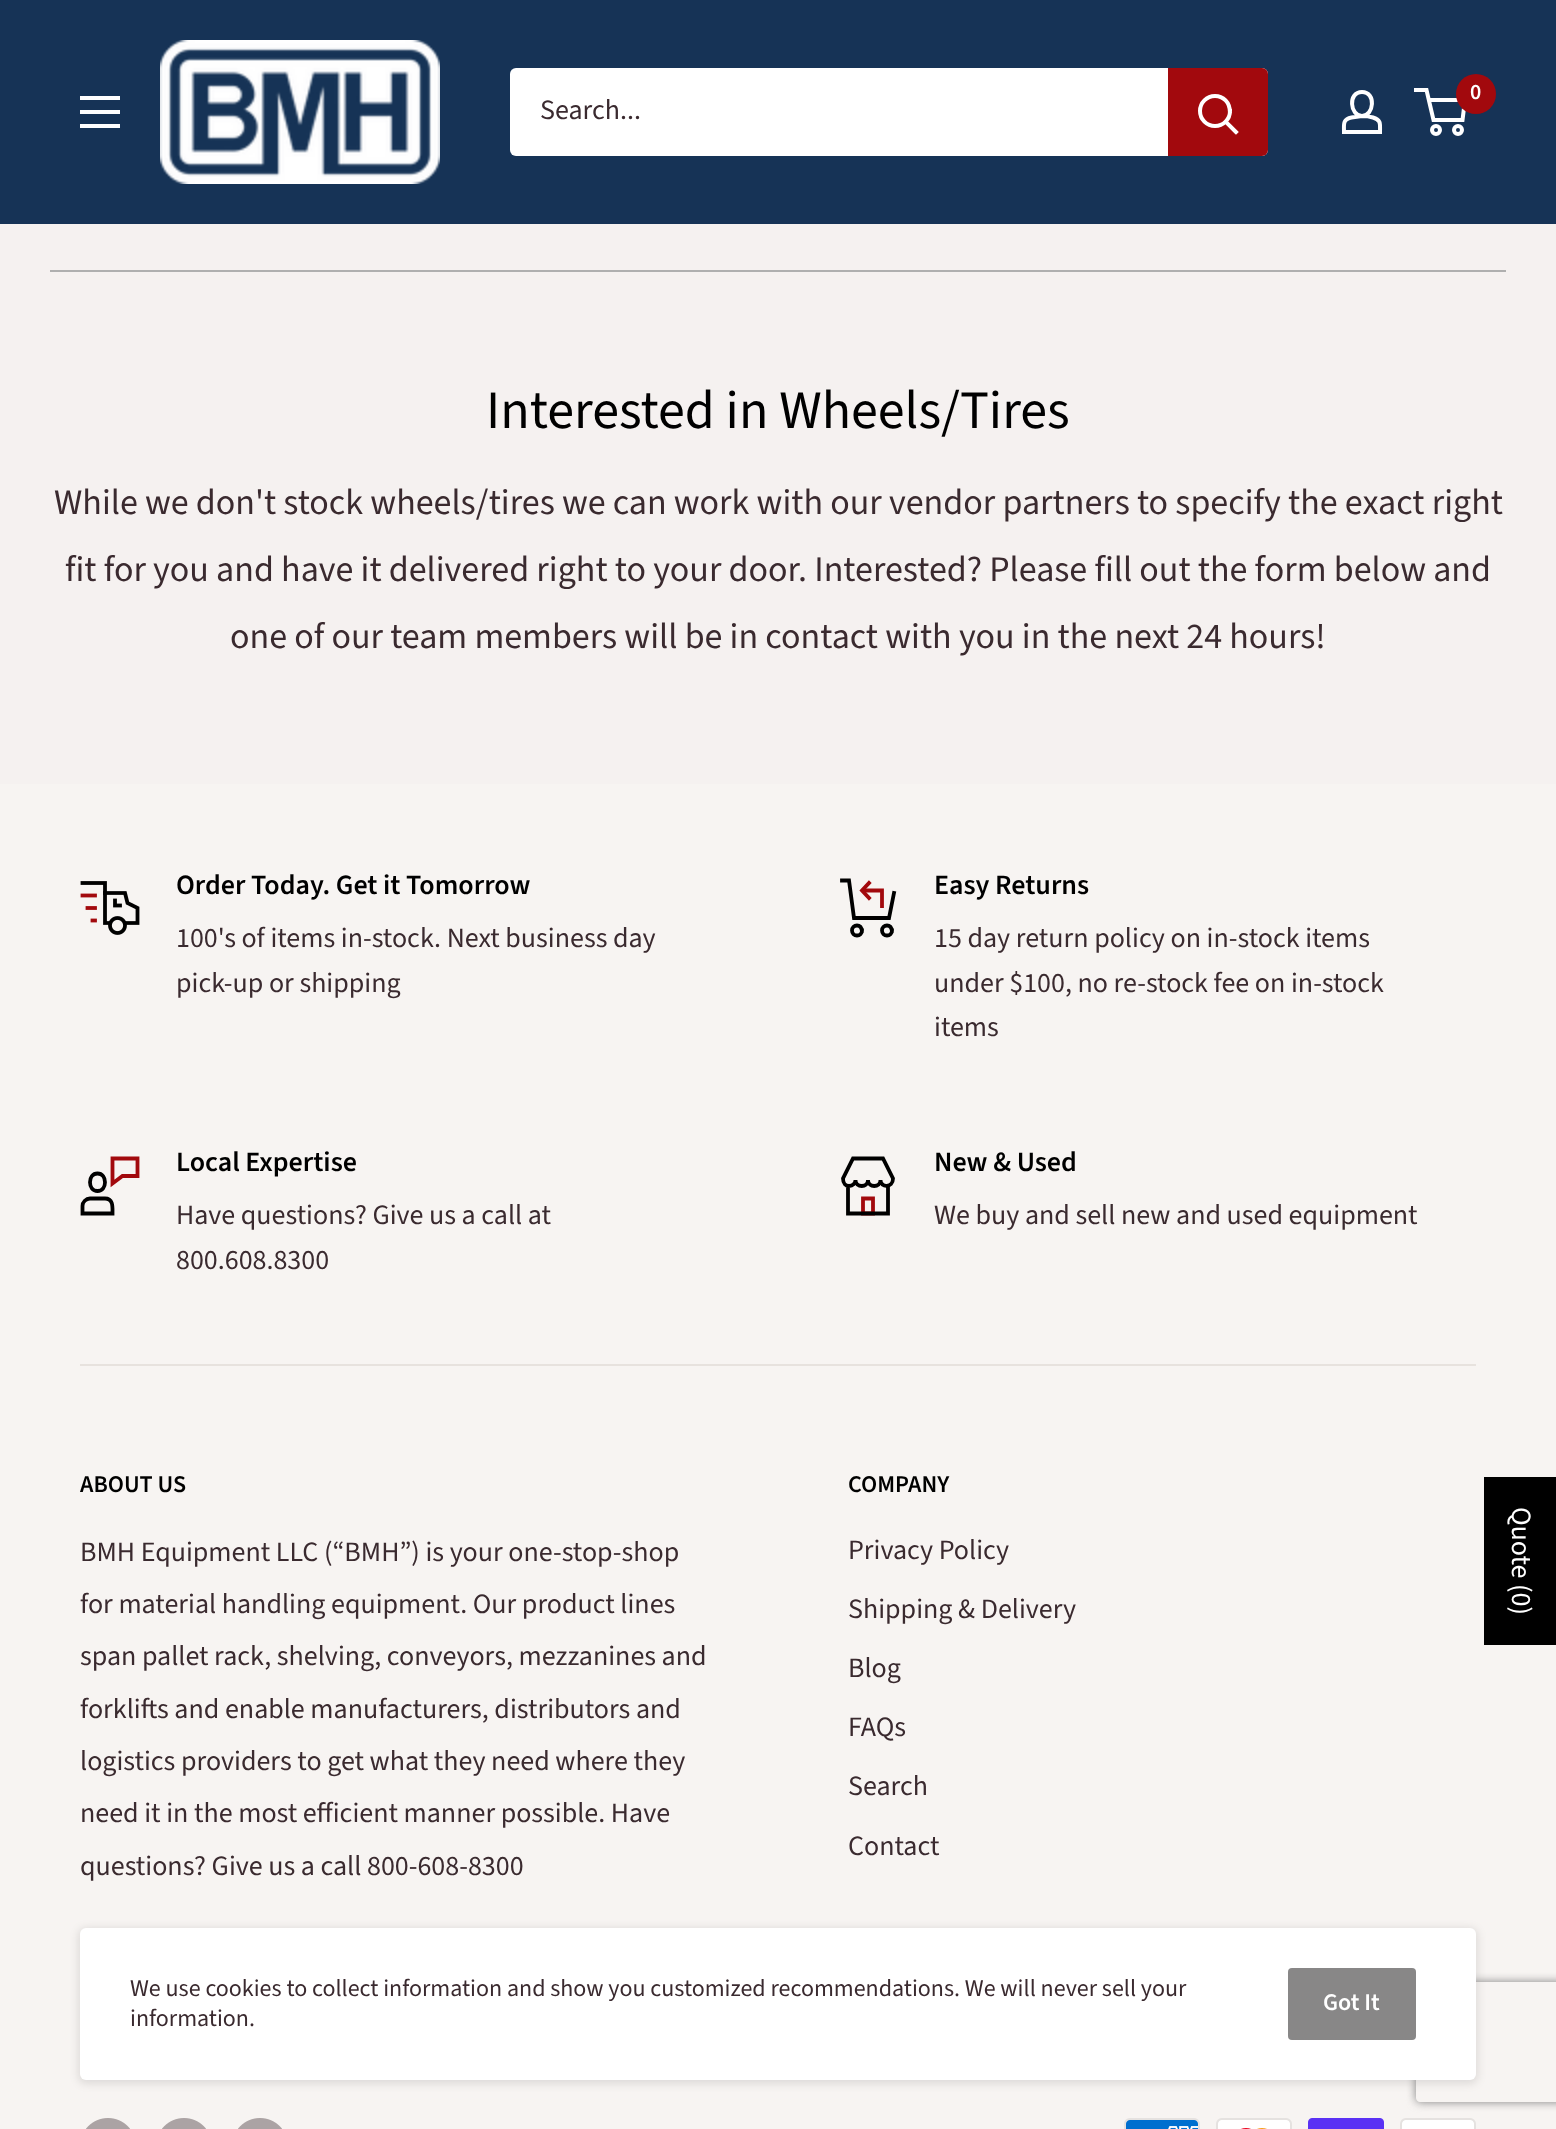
async function draw(canvas) {
	canvas.width = 1556;
	canvas.height = 2129;
	const c = canvas.getContext('2d');
	c.miterLimit = 4;
	c.fontKerning = 'normal';
	async function loadImage(src) {
		const img = new Image();
		img.src = src;
		await img.decode();
		return img;
	}

	c.fillStyle = '#f7f4f2';
	c.fillRect(0, 0, 1556, 2129);
	c.fillStyle = '#163356';
	c.fillRect(0, 0, 1556, 224);
	c.drawImage(await loadImage('img1.png'), 160, 40, 280, 144);
	c.beginPath();
	c.moveTo(1362, 116);
	c.bezierCurveTo(1366, 116, 1369.5, 116.5, 1373, 117.5);
	c.bezierCurveTo(1381.5, 120, 1380, 124.5, 1380, 132);
	c.lineTo(1344, 132);
	c.bezierCurveTo(1344, 124, 1342.5, 119.5, 1351.5, 117.5);
	c.closePath();
	c.moveTo(1362, 116);
	c.bezierCurveTo(1350, 116, 1347.5, 92, 1362, 92);
	c.bezierCurveTo(1376.5, 92, 1374, 116, 1362, 116);
	c.closePath();
	c.strokeStyle = '#fff';
	c.lineWidth = 4;
	c.stroke();
	c.beginPath();
	c.arc(1436, 130, 4, 0, 2 * Math.PI);
	c.stroke();
	c.beginPath();
	c.arc(1458, 130, 4, 0, 2 * Math.PI);
	c.stroke();
	c.beginPath();
	c.moveTo(1428.5, 100);
	c.lineTo(1465, 100);
	c.lineTo(1462.5, 120);
	c.lineTo(1433.5, 120);
	c.lineTo(1426.5, 90);
	c.lineTo(1414, 90);
	c.stroke();
	c.fillStyle = '#a2090d';
	c.beginPath();
	c.arc(1476, 94, 20, 0, 2 * Math.PI);
	c.fill();
	c.font = '600 22px Source Sans Pro';
	c.fillStyle = '#fff';
	c.fillText('0', 1470, 99);
	c.beginPath();
	c.moveTo(80, 124);
	c.lineTo(120, 124);
	c.lineTo(120, 128);
	c.lineTo(80, 128);
	c.closePath();
	c.moveTo(80, 96);
	c.lineTo(120, 96);
	c.lineTo(120, 100);
	c.lineTo(80, 100);
	c.closePath();
	c.moveTo(80, 110);
	c.lineTo(120, 110);
	c.lineTo(120, 114);
	c.lineTo(80, 114);
	c.closePath();
	c.fill('evenodd');
	c.beginPath();
	c.roundRect(510, 68, 758, 88, 6);
	c.fill();
	c.font = '28px Source Sans Pro';
	c.fillStyle = '#3a2a2f';
	c.fillText('Search...', 540, 119);
	c.fillStyle = '#a2090d';
	c.beginPath();
	c.roundRect(1168, 68, 100, 88, [0, 6, 6, 0]);
	c.fill();
	c.beginPath();
	c.moveTo(1236, 132);
	c.lineTo(1226, 122);
	c.lineCap = 'square';
	c.stroke();
	c.beginPath();
	c.arc(1215, 111, 15, 0, 2 * Math.PI);
	c.stroke();
	c.fillStyle = '#f5f1f0';
	c.fillRect(0, 224, 1556, 560);
	c.fillStyle = '#afafaf';
	c.fillRect(50, 270, 1456, 2);
	c.font = '54px Source Sans Pro';
	c.fillStyle = '#000';
	c.fillText('Interested in Wheels/Tires', 486, 428);
	c.font = '36px Source Sans Pro';
	c.fillStyle = '#3a2a2f';
	for (const [text, x, y] of [
		['While we don\'t stock wheels/tires we can work with our vendor partners to specify the exact right', 54, 514],
		['fit for you and have it delivered right to your door. Interested? Please fill out the form below and', 65, 581],
		['one of our team members will be in contact with you in the next 24 hours!', 230, 648],
	]) {
		c.fillText(text, x, y);
	}
	c.drawImage(await loadImage('img2.png'), 80, 881, 60, 54);
	c.font = '600 28px Source Sans Pro';
	c.fillStyle = '#000';
	c.fillText('Order Today. Get it Tomorrow', 176, 894);
	c.font = '28px Source Sans Pro';
	c.fillStyle = '#3a2a2f';
	c.fillText('100\'s of items in-stock. Next business day', 176, 947);
	c.fillText('pick-up or shipping', 176, 992);
	c.beginPath();
	c.moveTo(862, 890.5);
	c.lineTo(882, 890.5);
	c.lineTo(882, 908);
	c.strokeStyle = '#a2090d';
	c.lineWidth = 3.8;
	c.lineCap = 'butt';
	c.stroke();
	c.beginPath();
	c.moveTo(869, 898);
	c.lineTo(862, 890.5);
	c.lineTo(869, 883);
	c.lineCap = 'square';
	c.stroke();
	c.beginPath();
	c.moveTo(894, 893);
	c.lineTo(889, 918);
	c.lineTo(854, 918);
	c.lineTo(849, 880.5);
	c.lineTo(842, 880.5);
	c.strokeStyle = '#000';
	c.stroke();
	c.beginPath();
	c.arc(857, 930.5, 5, 0, 2 * Math.PI);
	c.stroke();
	c.beginPath();
	c.arc(887, 930.5, 5, 0, 2 * Math.PI);
	c.stroke();
	c.font = '600 28px Source Sans Pro';
	c.fillStyle = '#000';
	c.fillText('Easy Returns', 934, 894);
	c.font = '28px Source Sans Pro';
	c.fillStyle = '#3a2a2f';
	for (const [text, x, y] of [
		['15 day return policy on in-stock items', 934, 947],
		['under $100, no re-stock fee on in-stock', 934, 992],
		['items', 934, 1036],
	]) {
		c.fillText(text, x, y);
	}
	c.beginPath();
	c.moveTo(105, 1198.5);
	c.lineTo(90, 1198.5);
	c.bezierCurveTo(86, 1198.5, 82.5, 1202, 82.5, 1206);
	c.lineTo(82.5, 1213.5);
	c.lineTo(112.5, 1213.5);
	c.bezierCurveTo(112.5, 1207.5, 113.5, 1198.5, 105, 1198.5);
	c.closePath();
	c.moveTo(97.5, 1191);
	c.bezierCurveTo(87.5, 1191, 87.5, 1173.5, 97.5, 1173.5);
	c.bezierCurveTo(107.5, 1173.5, 107.5, 1191, 97.5, 1191);
	c.closePath();
	c.stroke();
	c.beginPath();
	c.moveTo(112.5, 1158.5);
	c.lineTo(112.5, 1183.5);
	c.lineTo(122.5, 1176);
	c.lineTo(137.5, 1176);
	c.lineTo(137.5, 1158.5);
	c.closePath();
	c.strokeStyle = '#a2090d';
	c.stroke();
	c.font = '600 28px Source Sans Pro';
	c.fillStyle = '#000';
	c.fillText('Local Expertise', 176, 1171);
	c.font = '28px Source Sans Pro';
	c.fillStyle = '#3a2a2f';
	c.fillText('Have questions? Give us a call at', 176, 1224);
	c.fillText('800.608.8300', 176, 1269);
	c.beginPath();
	c.moveTo(863, 1198.5);
	c.lineTo(873, 1198.5);
	c.lineTo(873, 1213.5);
	c.lineTo(863, 1213.5);
	c.closePath();
	c.lineCap = 'butt';
	c.stroke();
	c.beginPath();
	c.moveTo(848, 1186);
	c.lineTo(848, 1213.5);
	c.lineTo(888, 1213.5);
	c.lineTo(888, 1186);
	c.moveTo(893, 1178.5);
	c.bezierCurveTo(893, 1188, 880.5, 1188, 880.5, 1180);
	c.bezierCurveTo(880.5, 1188, 868, 1188, 868, 1180);
	c.bezierCurveTo(868, 1188, 855.5, 1188, 855.5, 1180);
	c.bezierCurveTo(855.5, 1183, 853, 1186, 849, 1186);
	c.bezierCurveTo(846, 1186, 843, 1183.5, 843, 1178.5);
	c.lineTo(853, 1158.5);
	c.lineTo(883, 1158.5);
	c.closePath();
	c.strokeStyle = '#000';
	c.lineCap = 'square';
	c.stroke();
	c.font = '600 28px Source Sans Pro';
	c.fillStyle = '#000';
	c.fillText('New & Used', 934, 1171);
	c.font = '28px Source Sans Pro';
	c.fillStyle = '#3a2a2f';
	c.fillText('We buy and sell new and used equipment', 934, 1224);
	c.fillStyle = '#e7e2de';
	c.fillRect(80, 1364, 1396, 2);
	c.font = '600 24px Source Sans Pro';
	c.fillStyle = '#000';
	c.fillText('ABOUT US', 80, 1492);
	c.font = '28px Source Sans Pro';
	c.fillStyle = '#3a2a2f';
	for (const [text, x, y] of [
		['BMH Equipment LLC (“BMH”) is your one-stop-shop', 80, 1561],
		['for material handling equipment. Our product lines', 80, 1613],
		['span pallet rack, shelving, conveyors, mezzanines and', 80, 1665],
		['forklifts and enable manufacturers, distributors and', 80, 1718],
		['logistics providers to get what they need where they', 80, 1770],
		['need it in the most efficient manner possible. Have', 80, 1822],
		['questions? Give us a call 800-608-8300', 80, 1875],
	]) {
		c.fillText(text, x, y);
	}
	c.font = '600 24px Source Sans Pro';
	c.fillStyle = '#000';
	c.fillText('COMPANY', 848, 1492);
	c.font = '28px Source Sans Pro';
	c.fillStyle = '#3a2a2f';
	for (const [text, x, y] of [
		['Privacy Policy', 848, 1559],
		['Shipping & Delivery', 848, 1618],
		['Blog', 848, 1677],
		['FAQs', 848, 1736],
		['Search', 848, 1795],
		['Contact', 848, 1855],
	]) {
		c.fillText(text, x, y);
	}
	c.drawImage(await loadImage('img3.png'), 86, 2118, 44, 11);
	c.drawImage(await loadImage('img3.png'), 162, 2118, 44, 11);
	c.drawImage(await loadImage('img3.png'), 238, 2118, 44, 11);
	c.drawImage(await loadImage('img4.png'), 1124, 2118, 76, 11);
	c.drawImage(await loadImage('img5.png'), 1216, 2118, 76, 11);
	c.drawImage(await loadImage('img6.png'), 1308, 2118, 76, 11);
	c.drawImage(await loadImage('img7.png'), 1400, 2118, 76, 11);
	c.fillStyle = '#0000001a';
	c.filter = 'blur(4px)';
	c.beginPath();
	c.roundRect(78, 1928, 1400, 156, 8);
	c.fill();
	c.filter = 'none';
	c.save();
	c.beginPath();
	c.moveTo(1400, 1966);
	c.lineTo(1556, 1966);
	c.lineTo(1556, 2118);
	c.lineTo(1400, 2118);
	c.closePath();
	c.moveTo(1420, 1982);
	c.lineTo(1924, 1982);
	c.bezierCurveTo(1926, 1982, 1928, 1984, 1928, 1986);
	c.lineTo(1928, 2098);
	c.bezierCurveTo(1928, 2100, 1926, 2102, 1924, 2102);
	c.lineTo(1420, 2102);
	c.bezierCurveTo(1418, 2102, 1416, 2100, 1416, 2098);
	c.lineTo(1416, 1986);
	c.bezierCurveTo(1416, 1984, 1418, 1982, 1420, 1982);
	c.closePath();
	c.clip('evenodd');
	c.fillStyle = '#808080';
	c.filter = 'blur(5px)';
	c.beginPath();
	c.roundRect(1416, 1982, 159, 120, 4);
	c.fill();
	c.filter = 'none';
	c.restore();
	c.fillStyle = '#fff';
	c.beginPath();
	c.roundRect(80, 1928, 1396, 152, 6);
	c.fill();
	c.font = '24px Source Sans Pro';
	c.fillStyle = '#3a2a2f';
	c.fillText('We use cookies to collect information and show you customized recommendations. We will never sell your', 130, 1996);
	c.fillText('information.', 130, 2026);
	c.fillStyle = '#888787';
	c.beginPath();
	c.roundRect(1288, 1968, 128, 72, 4);
	c.fill();
	c.font = '600 24px Source Sans Pro';
	c.fillStyle = '#fff';
	c.fillText('Got It', 1323, 2010);
	c.fillStyle = '#000';
	c.fillRect(1484, 1477, 72, 168);
	c.font = '28px Source Sans Pro';
	c.fillStyle = '#fff';
	c.save();
	c.translate(1512, 1507);
	c.rotate(90 * Math.PI / 180);
	c.fillText('Quote (0)', 0, 0);
	c.restore();
}

draw(document.querySelector('canvas'));
